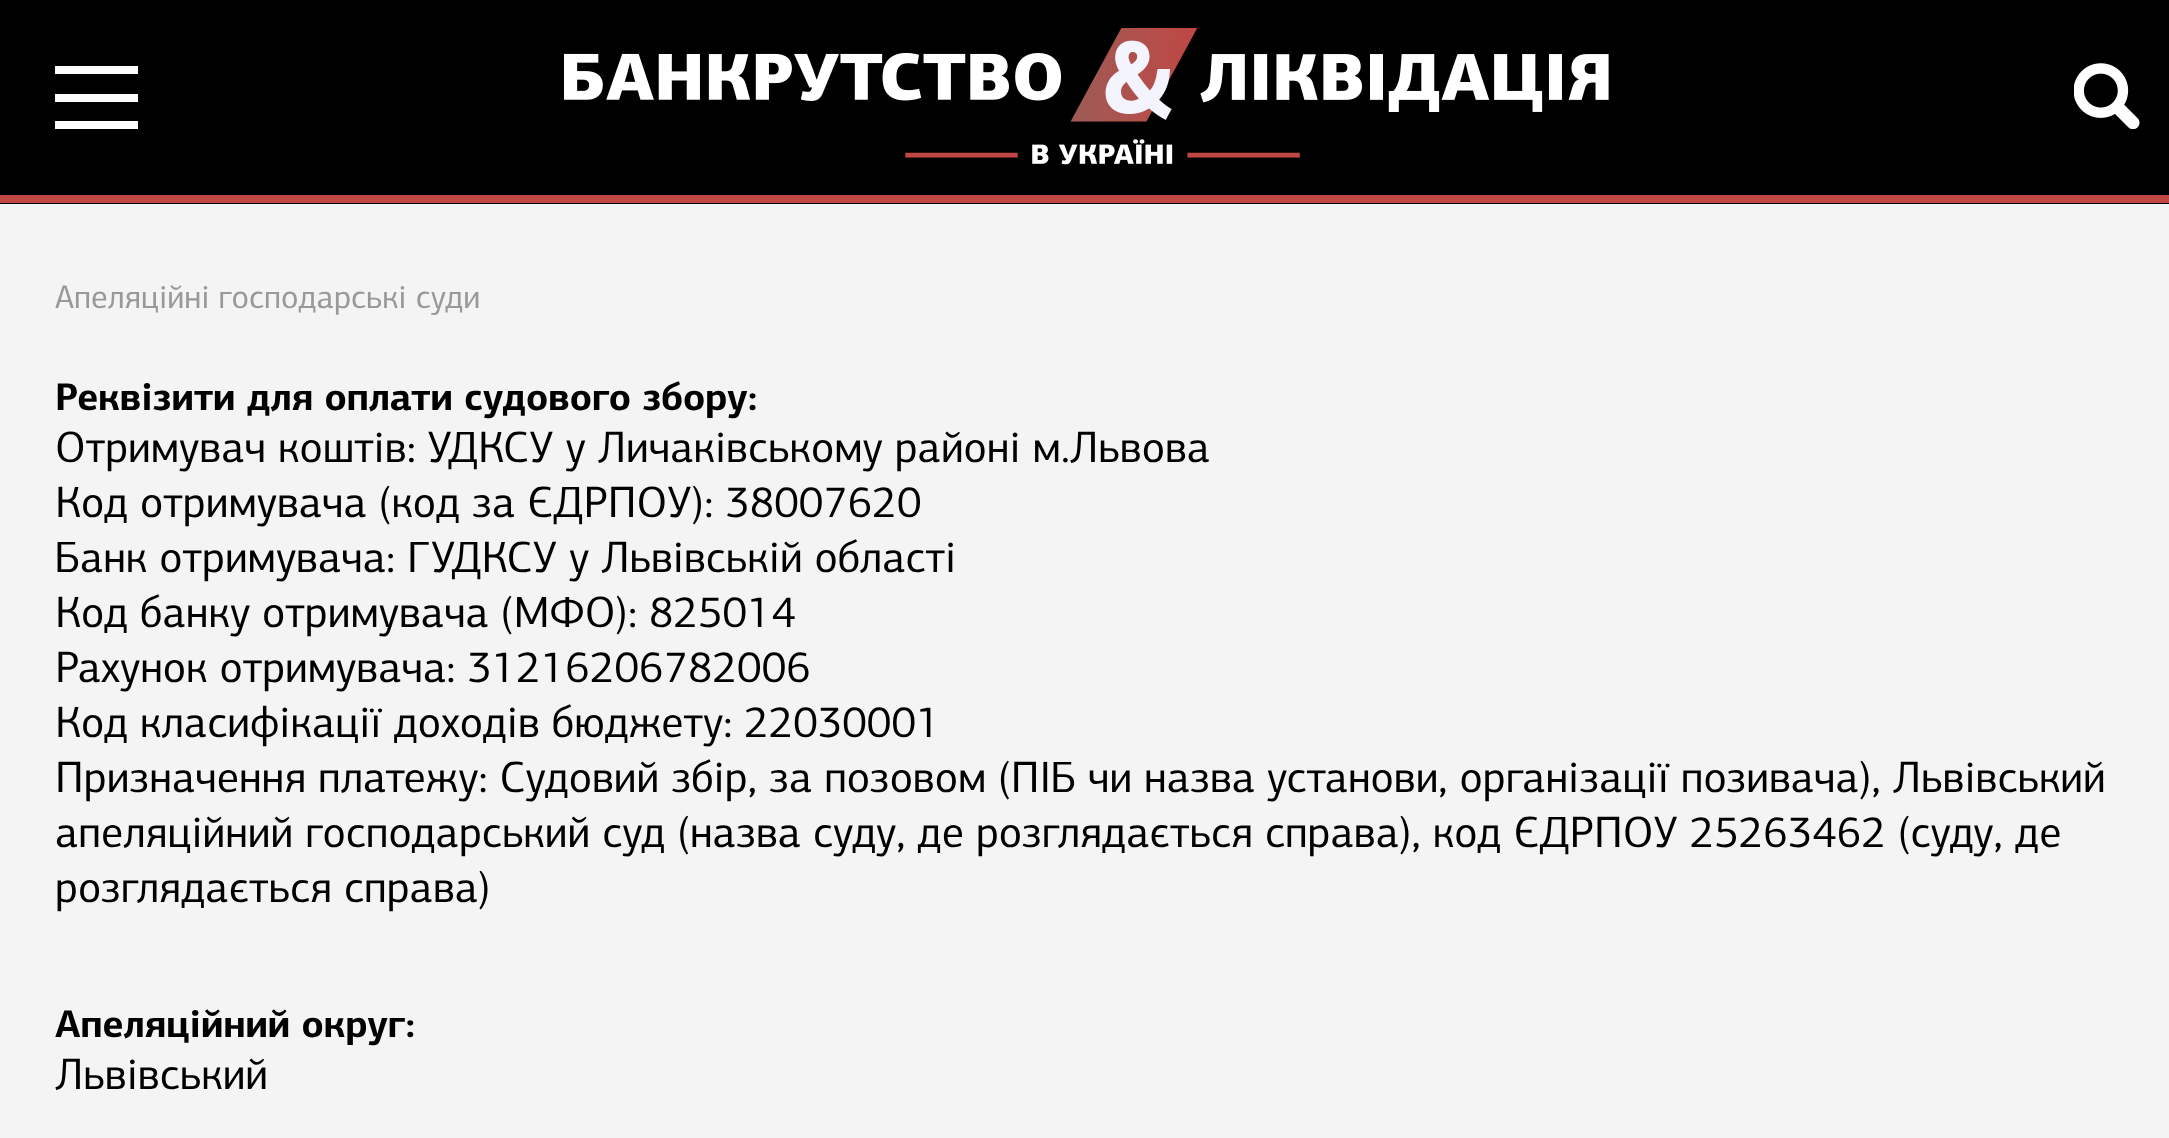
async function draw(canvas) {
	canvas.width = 2169;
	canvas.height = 1138;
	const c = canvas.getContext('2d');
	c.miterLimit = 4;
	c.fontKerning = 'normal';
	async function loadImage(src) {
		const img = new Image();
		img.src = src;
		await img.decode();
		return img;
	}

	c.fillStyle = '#f4f4f4';
	c.fillRect(0, 0, 2169, 1138);
	for (const [x, y, w, h, color] of [
		[0, 0, 2169, 204, '#000'],
		[0, 195, 2169, 8, '#c04744'],
		[55, 66, 83, 8, '#fff'],
		[55, 94, 83, 8, '#fff'],
		[55, 121, 83, 8, '#fff'],
	]) {
		c.fillStyle = color;
		c.fillRect(x, y, w, h);
	}
	c.drawImage(await loadImage('img1.png'), 564, 28, 1045, 137);
	c.drawImage(await loadImage('img2.png'), 2074, 63, 66, 66);
	c.font = '33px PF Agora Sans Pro';
	c.fillStyle = '#999';
	c.fillText('Апеляційні господарські суди', 55, 308);
	c.font = 'bold 38.5px PF Agora Sans Pro';
	c.fillStyle = '#000';
	c.fillText('Реквізити для оплати судового збору:', 55, 410);
	c.font = '44px PF Agora Sans Pro';
	for (const [text, x, y] of [
		['Отримувач коштів: УДКСУ у Личаківському районі м.Львова', 55, 462],
		['Код отримувача (код за ЄДРПОУ): 38007620', 55, 517],
		['Банк отримувача: ГУДКСУ у Львівській області', 55, 572],
		['Код банку отримувача (МФО): 825014', 55, 627],
		['Рахунок отримувача: 31216206782006', 55, 682],
		['Код класифікації доходів бюджету: 22030001', 55, 737],
		['Призначення платежу: Судовий збір, за позовом (ПІБ чи назва установи, організації позивача), Львівський', 55, 792],
		['апеляційний господарський суд (назва суду, де розглядається справа), код ЄДРПОУ 25263462 (суду, де', 55, 847],
		['розглядається справа)', 55, 902],
	]) {
		c.fillText(text, x, y);
	}
	c.font = 'bold 38.5px PF Agora Sans Pro';
	c.fillText('Апеляційний округ:', 55, 1037);
	c.font = '44px PF Agora Sans Pro';
	c.fillText('Львівський', 55, 1089);
}

draw(document.querySelector('canvas'));
